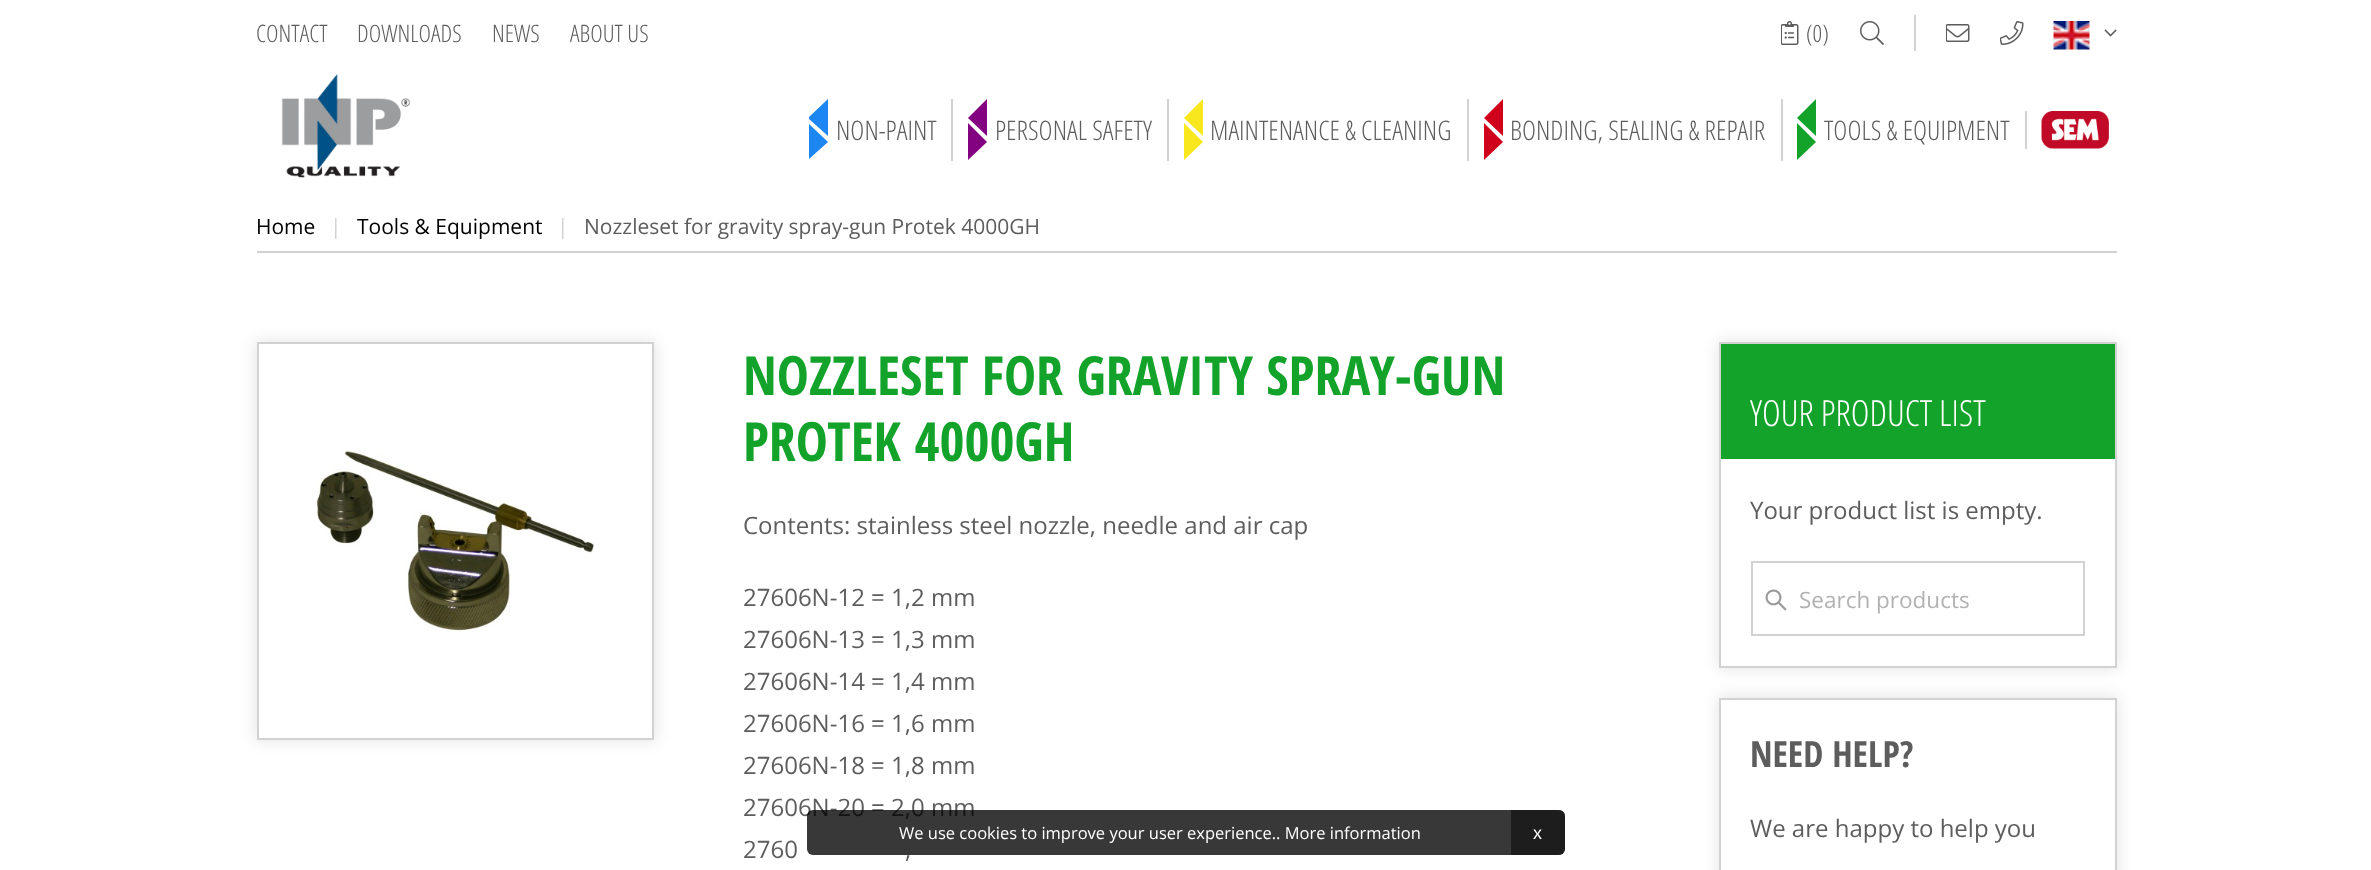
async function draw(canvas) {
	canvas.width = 2371;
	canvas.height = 870;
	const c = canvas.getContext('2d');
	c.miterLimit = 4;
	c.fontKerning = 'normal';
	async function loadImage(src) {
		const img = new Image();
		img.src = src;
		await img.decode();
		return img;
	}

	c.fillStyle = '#fff';
	c.fillRect(0, 0, 2371, 870);
	c.font = '300 24px Open Sans Condensed';
	c.fillStyle = '#5d5d5d';
	for (const [text, x, y] of [
		['CONTACT', 256, 42],
		['DOWNLOADS', 357, 42],
		['NEWS', 492, 42],
		['ABOUT US', 570, 42],
	]) {
		c.fillText(text, x, y);
	}
	c.drawImage(await loadImage('img1.png'), 1781, 21, 18, 24);
	c.fillText('(0)', 1806, 42);
	c.drawImage(await loadImage('img2.png'), 1860, 21, 24, 24);
	c.fillStyle = '#d2d2d2';
	c.fillRect(1914, 15, 2, 36);
	c.drawImage(await loadImage('img3.png'), 1946, 24, 24, 18);
	c.drawImage(await loadImage('img4.png'), 2000, 21, 24, 24);
	c.drawImage(await loadImage('img5.png'), 2053, 21, 37, 29);
	c.drawImage(await loadImage('img6.png'), 2104, 29, 13, 8);
	c.drawImage(await loadImage('img7.png'), 281, 74, 129, 104);
	c.save();
	c.beginPath();
	c.rect(809, 99, 19, 62);
	c.clip();
	c.fillStyle = '#1c86f2';
	c.beginPath();
	c.moveTo(808, 123);
	c.lineTo(828, 142);
	c.lineTo(808, 160);
	c.closePath();
	c.moveTo(828, 99);
	c.lineTo(828, 136);
	c.lineTo(808, 118);
	c.closePath();
	c.fill();
	c.restore();
	c.font = '300 27px Open Sans Condensed';
	c.fillStyle = '#5d5d5d';
	c.fillText('NON-PAINT', 836, 140);
	c.fillStyle = '#d2d2d2';
	c.fillRect(951, 99, 2, 62);
	c.fillStyle = '#830281';
	c.beginPath();
	c.moveTo(968, 123);
	c.lineTo(987, 142);
	c.lineTo(968, 160);
	c.closePath();
	c.moveTo(987, 99);
	c.lineTo(987, 136);
	c.lineTo(968, 118);
	c.closePath();
	c.fill();
	c.fillStyle = '#5d5d5d';
	c.fillText('PERSONAL SAFETY', 995, 140);
	c.fillStyle = '#d2d2d2';
	c.fillRect(1167, 99, 2, 62);
	c.fillStyle = '#f8e71c';
	c.beginPath();
	c.moveTo(1184, 123);
	c.lineTo(1203, 142);
	c.lineTo(1184, 160);
	c.closePath();
	c.moveTo(1203, 99);
	c.lineTo(1203, 136);
	c.lineTo(1184, 118);
	c.closePath();
	c.fill();
	c.fillStyle = '#5d5d5d';
	c.fillText('MAINTENANCE & CLEANING', 1210, 140);
	c.fillStyle = '#d2d2d2';
	c.fillRect(1467, 99, 2, 62);
	c.fillStyle = '#d0021b';
	c.beginPath();
	c.moveTo(1484, 123);
	c.lineTo(1503, 142);
	c.lineTo(1484, 160);
	c.closePath();
	c.moveTo(1503, 99);
	c.lineTo(1503, 136);
	c.lineTo(1484, 118);
	c.closePath();
	c.fill();
	c.fillStyle = '#5d5d5d';
	c.fillText('BONDING, SEALING & REPAIR', 1510, 140);
	c.fillStyle = '#d2d2d2';
	c.fillRect(1781, 99, 2, 62);
	c.fillStyle = '#13a32a';
	c.beginPath();
	c.moveTo(1797, 123);
	c.lineTo(1816, 142);
	c.lineTo(1797, 160);
	c.closePath();
	c.moveTo(1816, 99);
	c.lineTo(1816, 136);
	c.lineTo(1797, 118);
	c.closePath();
	c.fill();
	c.fillStyle = '#5d5d5d';
	c.fillText('TOOLS & EQUIPMENT', 1824, 140);
	c.fillStyle = '#d2d2d2';
	c.fillRect(2025, 111, 2, 38);
	c.drawImage(await loadImage('img8.png'), 2041, 111, 68, 38);
	c.fillRect(257, 251, 1860, 2);
	c.font = '21px Open Sans';
	c.fillStyle = '#000';
	c.fillText('Home', 256, 234);
	c.fillStyle = '#d2d2d2';
	c.fillText('|', 330, 234);
	c.fillStyle = '#000';
	c.fillText('Tools & Equipment', 357, 234);
	c.fillStyle = '#d2d2d2';
	c.fillText('|', 557, 234);
	c.fillStyle = '#5d5d5d';
	c.fillText('Nozzleset for gravity spray-gun Protek 4000GH', 584, 234);
	c.fillStyle = '#0000001a';
	c.filter = 'blur(7.5px)';
	c.beginPath();
	c.rect(255, 341, 401, 400);
	c.fill();
	c.filter = 'none';
	c.fillStyle = '#fff';
	c.beginPath();
	c.rect(258, 343, 395, 396);
	c.fill();
	c.strokeStyle = '#d2d2d2';
	c.lineWidth = 2;
	c.stroke();
	c.drawImage(await loadImage('img9.png'), 316, 450, 279, 182);
	c.font = 'bold 54px Open Sans Condensed';
	c.fillStyle = '#13a32a';
	c.fillText('NOZZLESET FOR GRAVITY SPRAY-GUN', 743, 395);
	c.fillText('PROTEK 4000GH', 743, 461);
	c.font = '24px Open Sans';
	c.fillStyle = '#5d5d5d';
	for (const [text, x, y] of [
		['Contents: stainless steel nozzle, needle and air cap', 743, 534],
		['27606N-12 = 1,2 mm', 743, 606],
		['27606N-13 = 1,3 mm', 743, 648],
		['27606N-14 = 1,4 mm', 743, 690],
		['27606N-16 = 1,6 mm', 743, 732],
		['27606N-18 = 1,8 mm', 743, 774],
		['27606N-20 = 2,0 mm', 743, 816],
		['2760', 743, 858],
		[',', 905, 858],
	]) {
		c.fillText(text, x, y);
	}
	c.fillStyle = '#0000001a';
	c.filter = 'blur(7.5px)';
	c.beginPath();
	c.rect(1718, 341, 400, 328);
	c.fill();
	c.filter = 'none';
	c.fillStyle = '#fff';
	c.fillRect(1721, 459, 394, 207);
	c.strokeRect(1720, 343, 396, 324);
	c.fillStyle = '#13a32a';
	c.fillRect(1721, 344, 394, 115);
	c.font = '300 36px Open Sans Condensed';
	c.fillStyle = '#fff';
	c.fillText('YOUR PRODUCT LIST', 1750, 426);
	c.font = '24px Open Sans';
	c.fillStyle = '#5d5d5d';
	c.fillText('Your product list is empty.', 1750, 519);
	c.drawImage(await loadImage('img10.png'), 1765, 589, 22, 22);
	c.strokeRect(1752, 562, 332, 73);
	c.font = '22.5px Open Sans';
	c.fillStyle = '#b2b2b2';
	c.fillText('Search products', 1799, 608);
	c.fillStyle = '#0000001a';
	c.filter = 'blur(7.5px)';
	c.beginPath();
	c.rect(1718, 696, 400, 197);
	c.fill();
	c.filter = 'none';
	c.fillStyle = '#fff';
	c.beginPath();
	c.rect(1720, 699, 396, 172);
	c.fill();
	c.stroke();
	c.font = 'bold 36px Open Sans Condensed';
	c.fillStyle = '#5d5d5d';
	c.fillText('NEED HELP?', 1750, 767);
	c.font = '24px Open Sans';
	c.fillText('We are happy to help you', 1750, 837);
	c.fillStyle = '#000000c7';
	c.beginPath();
	c.roundRect(807, 810, 758, 45, 6);
	c.fill();
	c.font = '16.5px Open Sans';
	c.fillStyle = '#fff';
	c.fillText('We use cookies to improve your user experience.. More information', 899, 839);
	c.fillStyle = '#0000007a';
	c.beginPath();
	c.roundRect(1511, 810, 54, 45, [0, 6, 6, 0]);
	c.fill();
	c.font = '18px Liberation Sans';
	c.fillStyle = '#fff';
	c.fillText('x', 1533, 839);
}

draw(document.querySelector('canvas'));
